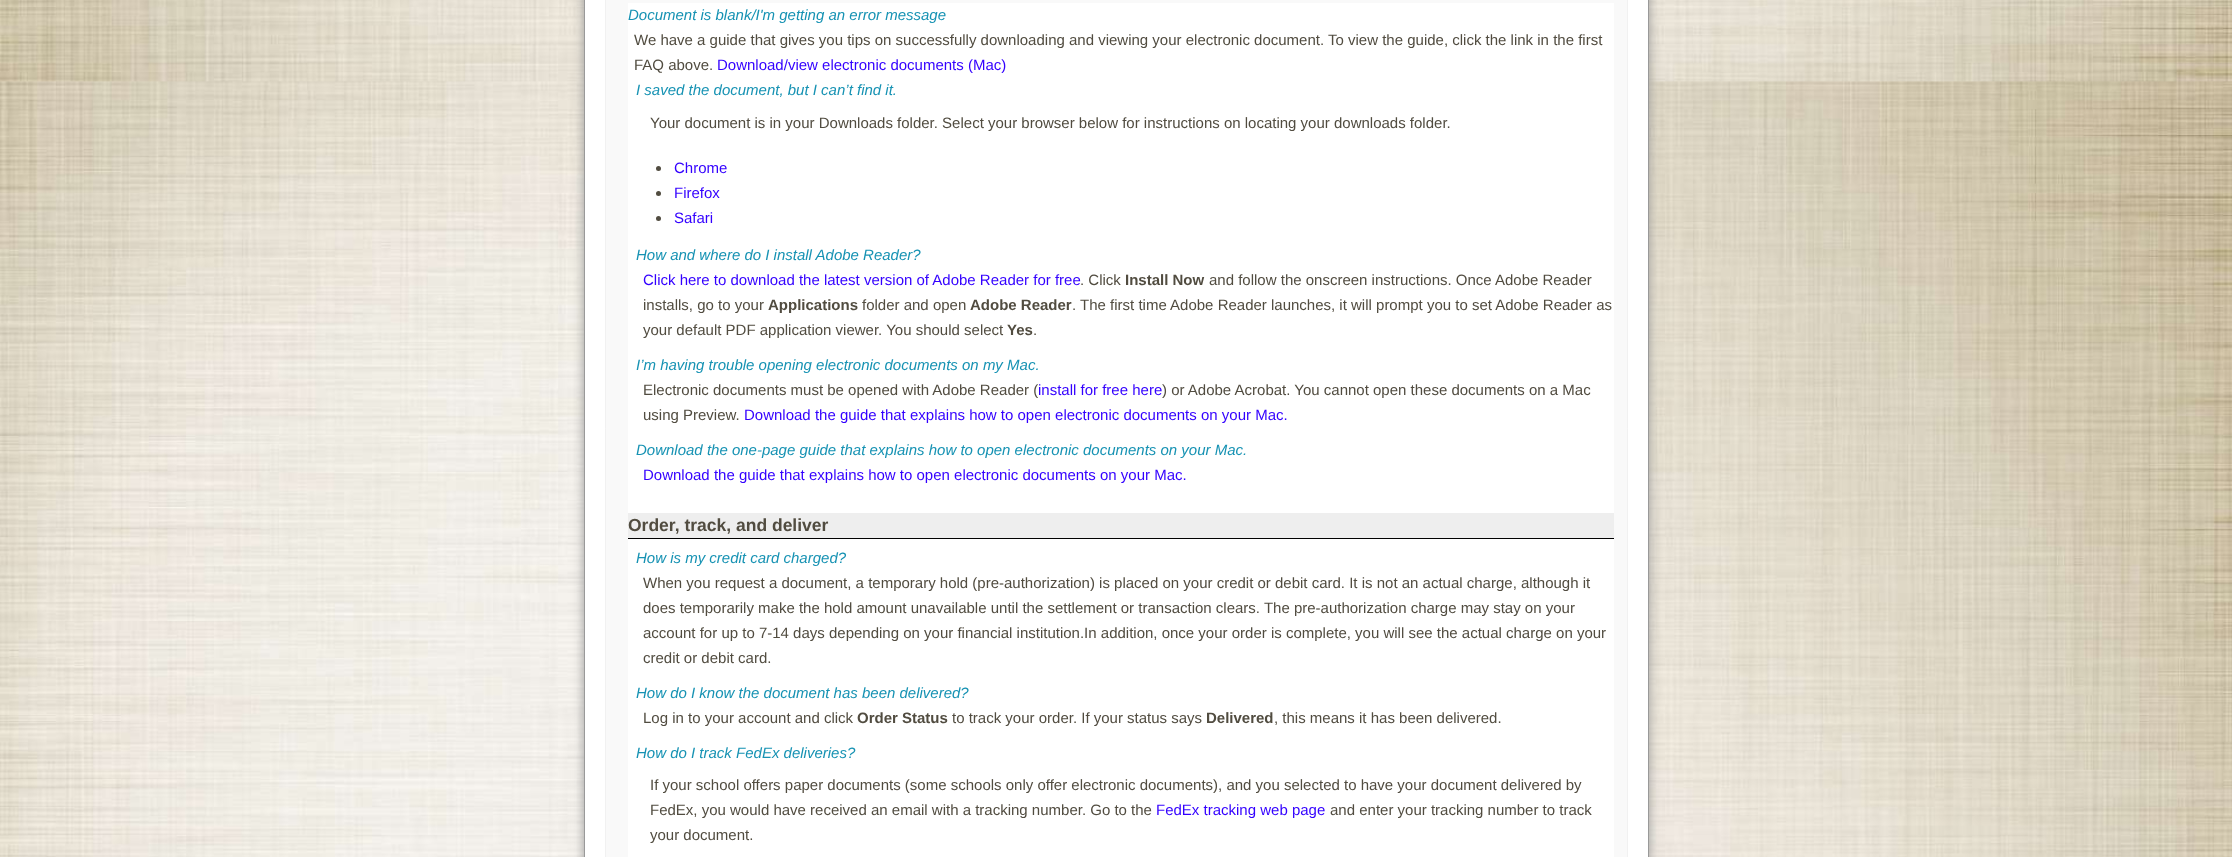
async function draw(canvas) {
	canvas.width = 2232;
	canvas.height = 857;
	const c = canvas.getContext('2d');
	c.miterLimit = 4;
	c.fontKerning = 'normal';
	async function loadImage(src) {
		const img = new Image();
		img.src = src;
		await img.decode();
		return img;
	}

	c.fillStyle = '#fff';
	c.fillRect(0, 0, 2232, 857);
	c.drawImage(await loadImage('img1.png'), 0, 0, 2232, 857);
	c.fillStyle = '#999';
	c.filter = 'blur(6px)';
	c.beginPath();
	c.roundRect(584, -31, 1065, 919, 13);
	c.fill();
	c.filter = 'none';
	c.fillStyle = '#fff';
	c.fillRect(585, 0, 1063, 857);
	c.fillStyle = '#999';
	c.beginPath();
	c.moveTo(596, -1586);
	c.lineTo(1636, -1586);
	c.bezierCurveTo(1643, -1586, 1649, -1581, 1649, -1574);
	c.lineTo(1649, 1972);
	c.bezierCurveTo(1649, 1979, 1643, 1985, 1636, 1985);
	c.lineTo(596, 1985);
	c.bezierCurveTo(589, 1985, 584, 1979, 584, 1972);
	c.lineTo(584, -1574);
	c.bezierCurveTo(584, -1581, 589, -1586, 596, -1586);
	c.closePath();
	c.moveTo(596, -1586);
	c.lineTo(1636, -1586);
	c.bezierCurveTo(1642, -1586, 1648, -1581, 1648, -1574);
	c.lineTo(1648, 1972);
	c.bezierCurveTo(1648, 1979, 1642, 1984, 1636, 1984);
	c.lineTo(596, 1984);
	c.bezierCurveTo(590, 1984, 585, 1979, 585, 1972);
	c.lineTo(585, -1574);
	c.bezierCurveTo(585, -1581, 590, -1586, 596, -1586);
	c.closePath();
	c.fill('evenodd');
	c.fillStyle = '#f9f9f9';
	c.beginPath();
	c.rect(605.5, -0.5, 1022, 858);
	c.fill();
	c.strokeStyle = '#f1f1f1';
	c.stroke();
	c.fillStyle = '#fff';
	c.fillRect(628, 3, 986, 854);
	c.font = 'italic 15px Liberation Sans';
	c.fillStyle = '#1692b3';
	c.fillText('Document is blank/I\'m getting an error message', 628, 20);
	c.font = '15px Liberation Sans';
	c.fillStyle = '#514c40';
	c.fillText('We have a guide that gives you tips on successfully downloading and viewing your electronic document. To view the guide, click the link in the first', 634, 45);
	c.fillText('FAQ above.', 634, 70);
	c.fillStyle = '#30f';
	c.fillText('Download/view electronic documents (Mac)', 717, 70);
	c.font = 'italic 15px Liberation Sans';
	c.fillStyle = '#1692b3';
	c.fillText('I saved the document, but I can’t find it.', 636, 95);
	c.font = '15px Liberation Sans';
	c.fillStyle = '#514c40';
	c.fillText('Your document is in your Downloads folder. Select your browser below for instructions on locating your downloads folder.', 650, 128);
	c.beginPath();
	c.arc(658.5, 168.5, 2.5, 0, 2 * Math.PI);
	c.fill();
	c.fillStyle = '#30f';
	c.fillText('Chrome', 674, 173);
	c.fillStyle = '#514c40';
	c.beginPath();
	c.arc(658.5, 193.5, 2.5, 0, 2 * Math.PI);
	c.fill();
	c.fillStyle = '#30f';
	c.fillText('Firefox', 674, 198);
	c.fillStyle = '#514c40';
	c.beginPath();
	c.arc(658.5, 218.5, 2.5, 0, 2 * Math.PI);
	c.fill();
	c.fillStyle = '#30f';
	c.fillText('Safari', 674, 223);
	c.font = 'italic 15px Liberation Sans';
	c.fillStyle = '#1692b3';
	c.fillText('How and where do I install Adobe Reader?', 636, 260);
	c.font = '15px Liberation Sans';
	c.fillStyle = '#30f';
	c.fillText('Click here to download the latest version of Adobe Reader for free', 643, 285);
	c.fillStyle = '#514c40';
	c.fillText('. Click', 1080, 285);
	c.font = 'bold 15px Liberation Sans';
	c.fillText('Install Now', 1125, 285);
	c.font = '15px Liberation Sans';
	c.fillText('and follow the onscreen instructions. Once Adobe Reader', 1209, 285);
	c.fillText('installs, go to your', 643, 310);
	c.font = 'bold 15px Liberation Sans';
	c.fillText('Applications', 768, 310);
	c.font = '15px Liberation Sans';
	c.fillText('folder and open', 862, 310);
	c.font = 'bold 15px Liberation Sans';
	c.fillText('Adobe Reader', 970, 310);
	c.font = '15px Liberation Sans';
	c.fillText('. The first time Adobe Reader launches, it will prompt you to set Adobe Reader as', 1072, 310);
	c.fillText('your default PDF application viewer. You should select', 643, 335);
	c.font = 'bold 15px Liberation Sans';
	c.fillText('Yes', 1007, 335);
	c.font = '15px Liberation Sans';
	c.fillText('.', 1033, 335);
	c.font = 'italic 15px Liberation Sans';
	c.fillStyle = '#1692b3';
	c.fillText('I’m having trouble opening electronic documents on my Mac.', 636, 370);
	c.font = '15px Liberation Sans';
	c.fillStyle = '#514c40';
	c.fillText('Electronic documents must be opened with Adobe Reader (', 643, 395);
	c.fillStyle = '#30f';
	c.fillText('install for free here', 1038, 395);
	c.fillStyle = '#514c40';
	c.fillText(') or Adobe Acrobat. You cannot open these documents on a Mac', 1162, 395);
	c.fillText('using Preview.', 643, 420);
	c.fillStyle = '#30f';
	c.fillText('Download the guide that explains how to open electronic documents on your Mac.', 744, 420);
	c.font = 'italic 15px Liberation Sans';
	c.fillStyle = '#1692b3';
	c.fillText('Download the one-page guide that explains how to open electronic documents on your Mac.', 636, 455);
	c.font = '15px Liberation Sans';
	c.fillStyle = '#30f';
	c.fillText('Download the guide that explains how to open electronic documents on your Mac.', 643, 480);
	c.fillStyle = '#eee';
	c.fillRect(628, 513, 986, 25);
	c.fillStyle = '#000';
	c.fillRect(628, 538, 986, 1);
	c.font = 'bold 17.5px Liberation Sans';
	c.fillStyle = '#514c40';
	c.fillText('Order, track, and deliver', 628, 531);
	c.font = 'italic 15px Liberation Sans';
	c.fillStyle = '#1692b3';
	c.fillText('How is my credit card charged?', 636, 563);
	c.font = '15px Liberation Sans';
	c.fillStyle = '#514c40';
	for (const [text, x, y] of [
		['When you request a document, a temporary hold (pre-authorization) is placed on your credit or debit card. It is not an actual charge, although it', 643, 588],
		['does temporarily make the hold amount unavailable until the settlement or transaction clears. The pre-authorization charge may stay on your', 643, 613],
		['account for up to 7-14 days depending on your financial institution.In addition, once your order is complete, you will see the actual charge on your', 643, 638],
		['credit or debit card.', 643, 663],
	]) {
		c.fillText(text, x, y);
	}
	c.font = 'italic 15px Liberation Sans';
	c.fillStyle = '#1692b3';
	c.fillText('How do I know the document has been delivered?', 636, 698);
	c.font = '15px Liberation Sans';
	c.fillStyle = '#514c40';
	c.fillText('Log in to your account and click', 643, 723);
	c.font = 'bold 15px Liberation Sans';
	c.fillText('Order Status', 857, 723);
	c.font = '15px Liberation Sans';
	c.fillText('to track your order. If your status says', 952, 723);
	c.font = 'bold 15px Liberation Sans';
	c.fillText('Delivered', 1206, 723);
	c.font = '15px Liberation Sans';
	c.fillText(', this means it has been delivered.', 1274, 723);
	c.font = 'italic 15px Liberation Sans';
	c.fillStyle = '#1692b3';
	c.fillText('How do I track FedEx deliveries?', 636, 758);
	c.font = '15px Liberation Sans';
	c.fillStyle = '#514c40';
	c.fillText('If your school offers paper documents (some schools only offer electronic documents), and you selected to have your document delivered by', 650, 790);
	c.fillText('FedEx, you would have received an email with a tracking number. Go to the', 650, 815);
	c.fillStyle = '#30f';
	c.fillText('FedEx tracking web page', 1156, 815);
	c.fillStyle = '#514c40';
	c.fillText('and enter your tracking number to track', 1330, 815);
	c.fillText('your document.', 650, 840);
}

draw(document.querySelector('canvas'));
